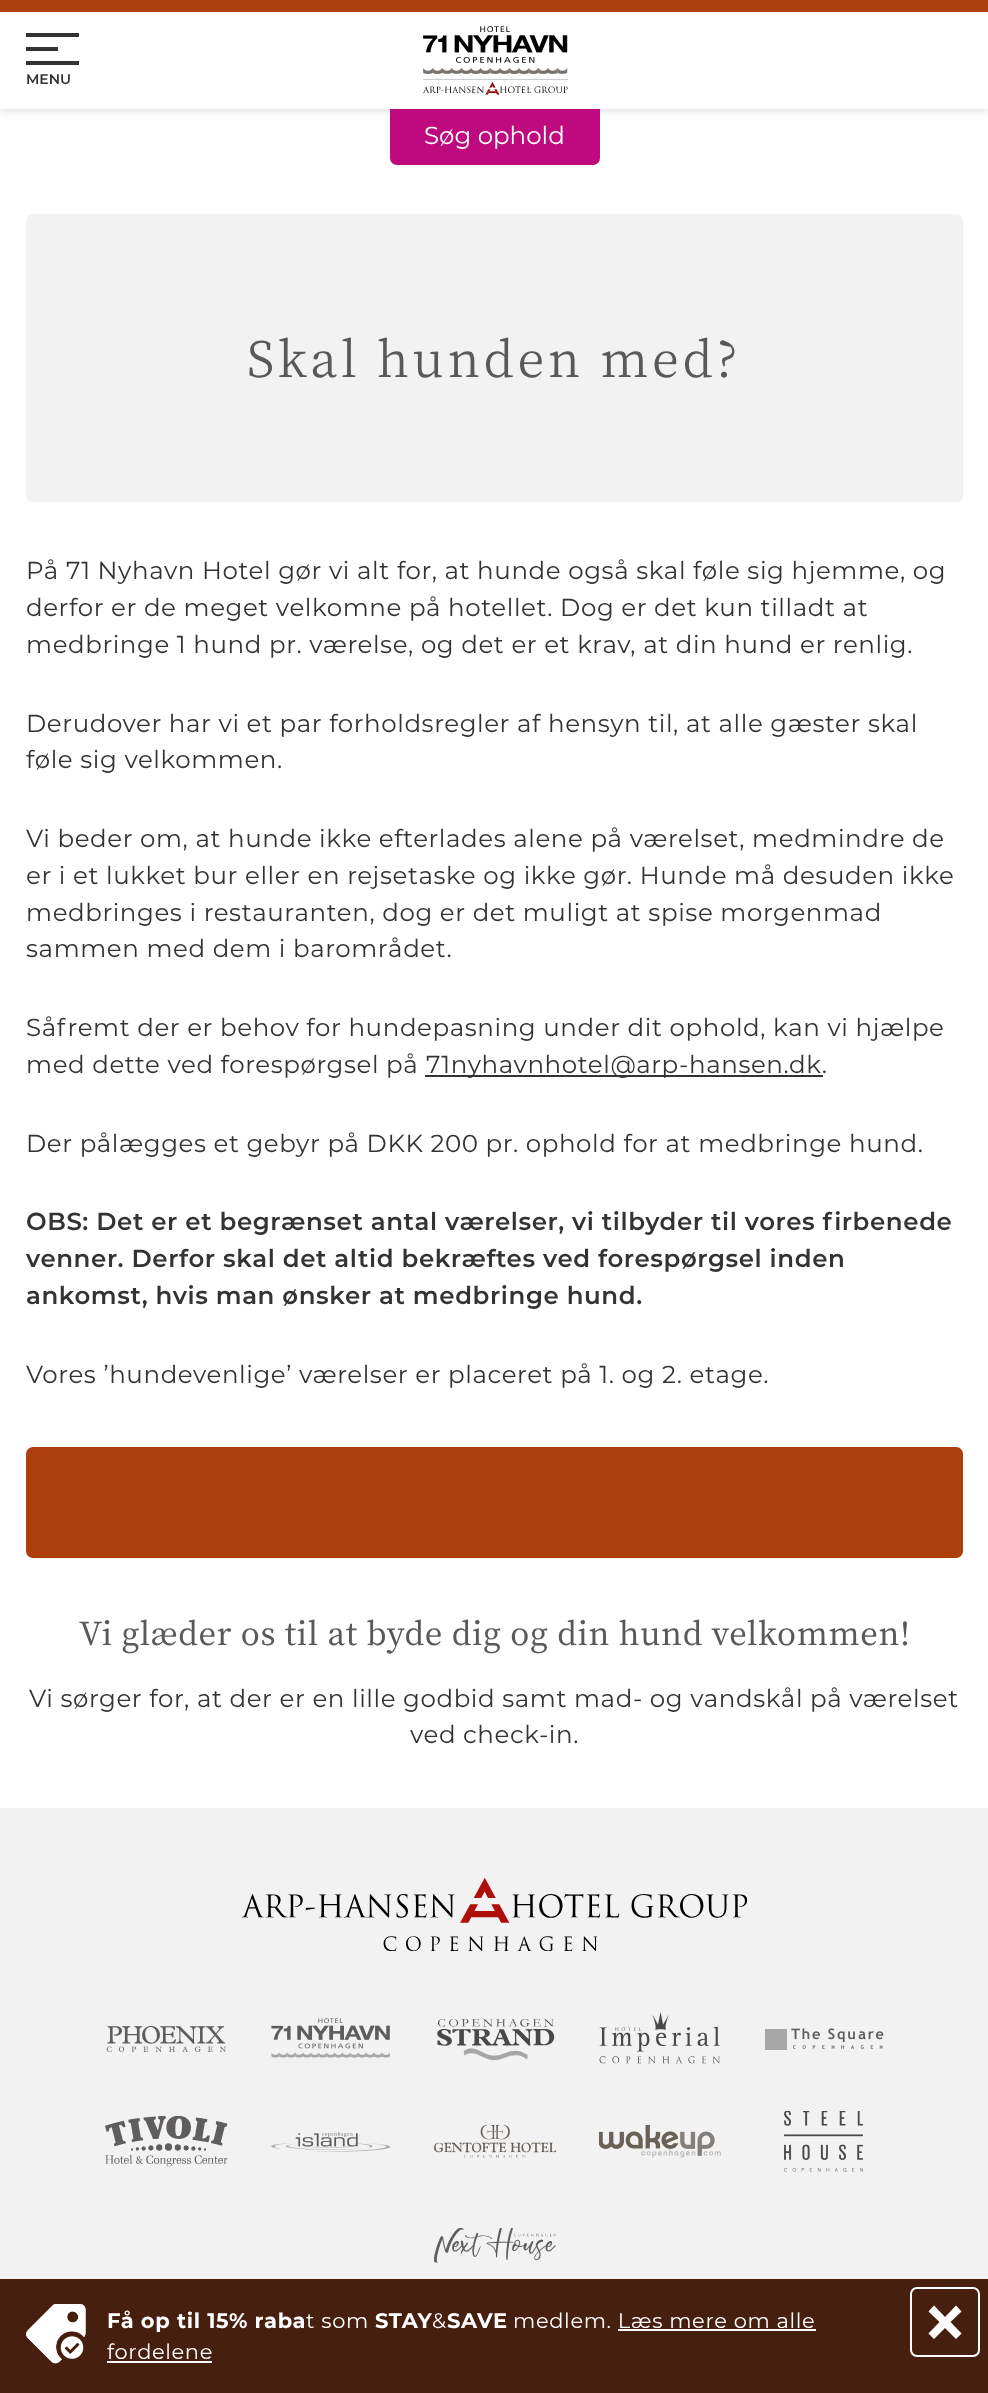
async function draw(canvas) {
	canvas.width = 988;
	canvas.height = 2393;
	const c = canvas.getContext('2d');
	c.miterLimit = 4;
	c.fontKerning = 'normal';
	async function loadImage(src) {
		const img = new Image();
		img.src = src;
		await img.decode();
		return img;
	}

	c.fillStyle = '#fff';
	c.fillRect(0, 0, 988, 2393);
	c.fillStyle = '#00000026';
	c.filter = 'blur(5px)';
	c.beginPath();
	c.rect(0, 2, 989, 108);
	c.fill();
	c.filter = 'none';
	for (const [x, y, w, h, color] of [
		[0, 0, 988, 12, '#ad3f0c'],
		[0, 12, 988, 97, '#fff'],
		[26, 33, 53, 4, '#333'],
		[26, 47, 32, 4, '#333'],
		[26, 61, 53, 4, '#333'],
	]) {
		c.fillStyle = color;
		c.fillRect(x, y, w, h);
	}
	c.font = '600 14px Montserrat';
	c.fillText('MENU', 26, 84);
	c.drawImage(await loadImage('img1.png'), 423, 26, 145, 69);
	c.fillStyle = '#be097f';
	c.beginPath();
	c.roundRect(391, 110, 208, 54, [0, 0, 6, 6]);
	c.fill();
	c.strokeStyle = '#be097f';
	c.lineWidth = 2;
	c.stroke();
	c.font = '24.5px Montserrat';
	c.fillStyle = '#fff';
	c.fillText('Søg ophold', 424, 144);
	c.fillStyle = '#f2f2f2';
	c.beginPath();
	c.roundRect(26, 214, 937, 288, 7);
	c.fill();
	c.letterSpacing = '3.7px';
	c.font = '49px Noto Serif JP';
	c.fillStyle = '#595959';
	c.fillText('Skal hunden med?', 247, 377);
	c.letterSpacing = '0.6px';
	c.font = '24.5px Montserrat';
	c.fillStyle = '#333';
	for (const [text, x, y] of [
		['På 71 Nyhavn Hotel gør vi alt for, at hunde også skal føle sig hjemme, og', 26, 579],
		['derfor er de meget velkomne på hotellet. Dog er det kun tilladt at', 26, 616],
		['medbringe 1 hund pr. værelse, og det er et krav, at din hund er renlig.', 26, 653],
		['Derudover har vi et par forholdsregler af hensyn til, at alle gæster skal', 26, 732],
		['føle sig velkommen.', 26, 768],
		['Vi beder om, at hunde ikke efterlades alene på værelset, medmindre de', 26, 847],
		['er i et lukket bur eller en rejsetaske og ikke gør. Hunde må desuden ikke', 26, 884],
		['medbringes i restauranten, dog er det muligt at spise morgenmad', 26, 921],
		['sammen med dem i barområdet.', 26, 957],
		['Såfremt der er behov for hundepasning under dit ophold, kan vi hjælpe', 26, 1036],
		['med dette ved forespørgsel på', 26, 1073],
	]) {
		c.fillText(text, x, y);
	}
	c.fillRect(425, 1075, 398, 2);
	c.fillText('71nyhavnhotel@arp-hansen.dk.', 426, 1073);
	c.fillText('Der pålægges et gebyr på DKK 200 pr. ophold for at medbringe hund.', 26, 1152);
	c.font = '600 24.5px Montserrat';
	for (const [text, x, y] of [
		['OBS: Det er et begrænset antal værelser, vi tilbyder til vores firbenede', 26, 1230],
		['venner. Derfor skal det altid bekræftes ved forespørgsel inden', 26, 1267],
		['ankomst, hvis man ønsker at medbringe hund.', 26, 1304],
	]) {
		c.fillText(text, x, y);
	}
	c.font = '24.5px Montserrat';
	c.fillText('Vores ’hundevenlige’ værelser er placeret på 1. og 2. etage.', 26, 1383);
	c.fillStyle = '#ad3f0c';
	c.beginPath();
	c.roundRect(26, 1447, 937, 111, 7);
	c.fill();
	c.letterSpacing = '0.63px';
	c.font = '500 31.6px Noto Serif JP';
	c.fillStyle = '#595959';
	c.fillText('Vi glæder os til at byde dig og din hund velkommen!', 79, 1645);
	c.letterSpacing = '0.6px';
	c.font = '24.5px Montserrat';
	c.fillStyle = '#333';
	c.fillText('Vi sørger for, at der er en lille godbid samt mad- og vandskål på værelset', 29, 1707);
	c.fillText('ved check-in.', 410, 1743);
	c.fillStyle = '#f2f2f2';
	c.fillRect(0, 1808, 988, 471);
	c.drawImage(await loadImage('img2.png'), 242, 1878, 505, 73);
	c.drawImage(await loadImage('img3.png'), 106, 2025, 120, 27);
	c.drawImage(await loadImage('img4.png'), 271, 2018, 119, 40);
	c.drawImage(await loadImage('img5.png'), 437, 2018, 118, 43);
	c.drawImage(await loadImage('img6.png'), 599, 2012, 121, 52);
	c.drawImage(await loadImage('img7.png'), 765, 2028, 119, 22);
	c.drawImage(await loadImage('img8.png'), 105, 2116, 123, 51);
	c.drawImage(await loadImage('img9.png'), 271, 2132, 120, 20);
	c.drawImage(await loadImage('img10.png'), 434, 2125, 123, 33);
	c.drawImage(await loadImage('img11.png'), 599, 2125, 122, 33);
	c.drawImage(await loadImage('img12.png'), 784, 2111, 79, 61);
	c.drawImage(await loadImage('img13.png'), 434, 2228, 123, 35);
	c.fillStyle = '#471f0e';
	c.fillRect(0, 2279, 988, 114);
	c.drawImage(await loadImage('img14.png'), 26, 2304, 60, 60);
	c.letterSpacing = '0.63px';
	c.font = 'bold 21px Montserrat';
	c.fillStyle = '#fff';
	c.fillText('Få op til 15% raba', 107, 2328);
	c.font = '21px Montserrat';
	c.fillText('t som', 306, 2328);
	c.font = 'bold 21px Montserrat';
	c.fillText('STAY', 375, 2328);
	c.font = '21px Montserrat';
	c.fillText('&', 432, 2328);
	c.font = 'bold 21px Montserrat';
	c.fillText('SAVE', 447, 2328);
	c.font = '21px Montserrat';
	c.fillText('medlem. Læs mere om alle', 513, 2328);
	c.fillText('fordelene', 107, 2359);
	c.fillRect(618, 2329, 198, 2);
	c.fillRect(107, 2361, 105, 2);
	c.beginPath();
	c.roundRect(911, 2288, 68, 68, 6);
	c.strokeStyle = '#fff';
	c.stroke();
	c.beginPath();
	c.moveTo(961.5, 2311.5);
	c.lineTo(956, 2305.5);
	c.lineTo(945, 2317);
	c.lineTo(934, 2305.5);
	c.lineTo(928.5, 2311.5);
	c.lineTo(939.5, 2322);
	c.lineTo(928.5, 2333.5);
	c.lineTo(934, 2339);
	c.lineTo(945, 2328);
	c.lineTo(956, 2339);
	c.lineTo(961.5, 2333.5);
	c.lineTo(950.5, 2322);
	c.closePath();
	c.fill();
}

draw(document.querySelector('canvas'));
